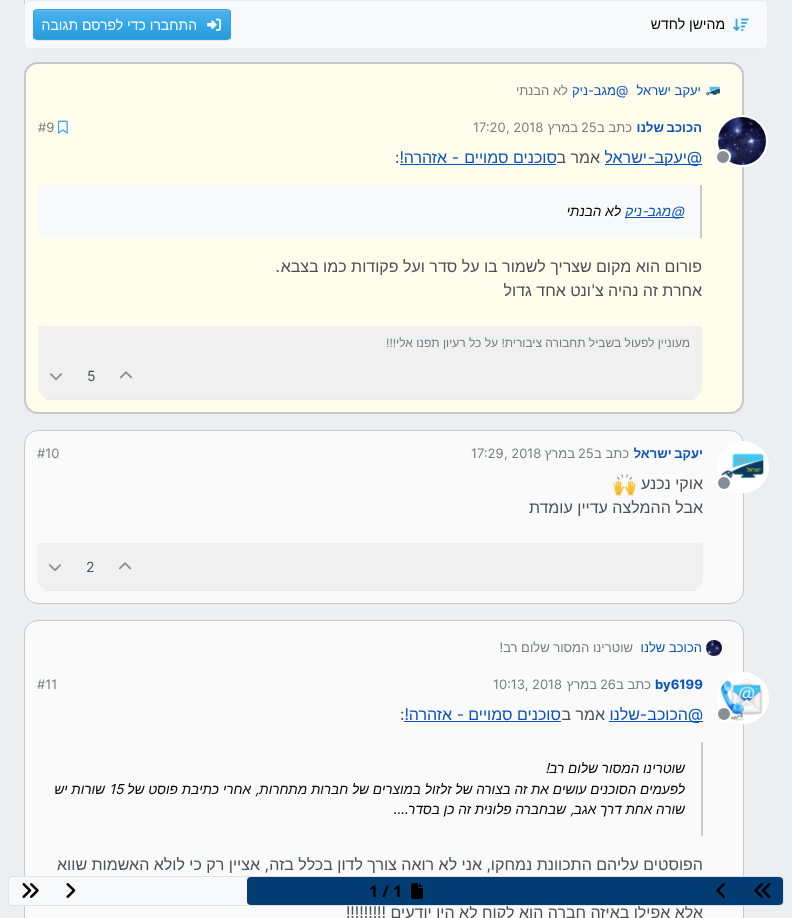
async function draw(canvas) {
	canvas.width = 792;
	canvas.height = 918;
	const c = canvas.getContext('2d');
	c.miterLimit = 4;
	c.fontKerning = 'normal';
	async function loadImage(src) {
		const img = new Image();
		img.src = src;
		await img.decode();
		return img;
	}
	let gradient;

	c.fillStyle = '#ebeff1';
	c.fillRect(0, 0, 792, 918);
	c.fillStyle = '#fafafa';
	c.beginPath();
	c.roundRect(24.5, -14.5, 719, 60, 13.5);
	c.fill();
	c.strokeStyle = '#c8c8c8';
	c.stroke();
	c.fillStyle = '#f8f9fa';
	c.beginPath();
	c.roundRect(24.5, 0.5, 743, 48, 5.5);
	c.fill();
	c.strokeStyle = '#e9ecef';
	c.stroke();
	c.drawImage(await loadImage('img1.png'), 733, 18, 16, 13);
	c.direction = 'rtl';
	c.font = '14px Liberation Sans';
	c.fillStyle = '#000';
	c.fillText('מהישן לחדש', 725, 29);
	c.fillStyle = '#00000012';
	c.filter = 'blur(0.5px)';
	c.beginPath();
	c.roundRect(33, 10, 198, 31, 4);
	c.fill();
	c.filter = 'none';
	c.save();
	c.beginPath();
	c.roundRect(33, 9, 198, 31, 4);
	c.clip();
	gradient = c.createLinearGradient(132, 10, 132, 39);
	gradient.addColorStop(0, '#50b3eb');
	gradient.addColorStop(0.6, '#2fa4e7');
	gradient.addColorStop(1, '#2c9ad9');
	c.fillStyle = gradient;
	c.fillRect(33, 10, 198, 29);
	c.restore();
	c.fillStyle = '#69beee';
	c.beginPath();
	c.moveTo(37, 11);
	c.lineTo(227, 11);
	c.bezierCurveTo(229, 11, 230, 12, 230, 14);
	c.bezierCurveTo(230, 12, 229, 10, 227, 10);
	c.lineTo(37, 10);
	c.bezierCurveTo(35, 10, 34, 12, 34, 14);
	c.bezierCurveTo(34, 12, 35, 11, 37, 11);
	c.closePath();
	c.fill();
	c.beginPath();
	c.roundRect(33.5, 9.5, 197, 30, 3.5);
	c.strokeStyle = '#2fa4e7';
	c.stroke();
	c.drawImage(await loadImage('img2.png'), 207, 18, 14, 13);
	c.fillStyle = '#fff';
	c.fillText('התחברו כדי לפרסם תגובה', 197, 30);
	c.fillStyle = '#fffdeb';
	c.beginPath();
	c.roundRect(25, 63, 718, 350, 13);
	c.fill();
	c.strokeStyle = '#c8c8c8';
	c.lineWidth = 2;
	c.stroke();
	c.drawImage(await loadImage('img3.png'), 705, 83, 16, 16);
	c.font = '13px Liberation Sans';
	c.fillStyle = '#0951be';
	c.fillText('יעקב ישראל', 701, 95);
	c.direction = 'ltr';
	c.font = '13px Inter';
	c.fillText('@', 616, 95);
	c.direction = 'rtl';
	c.font = '13px Liberation Sans';
	c.fillText('מגב', 616, 95);
	c.font = '13px Inter';
	c.fillText('-', 594, 95);
	c.font = '13px Liberation Sans';
	c.fillText('ניק', 588, 95);
	c.fillStyle = '#777b7c';
	c.fillText('לא הבנתי', 568, 95);
	c.beginPath();
	c.arc(742, 141, 25, 0, 2 * Math.PI);
	c.strokeStyle = '#fff';
	c.stroke();
	c.drawImage(await loadImage('img4.png'), 718, 117, 48, 48);
	c.fillStyle = '#868e96';
	c.beginPath();
	c.arc(723, 157, 7, 0, 2 * Math.PI);
	c.fill();
	c.stroke();
	c.wordSpacing = '-1px';
	c.font = 'bold 13px Liberation Sans';
	c.fillStyle = '#0951be';
	c.fillText('הכוכב שלנו', 702, 132);
	c.wordSpacing = '0px';
	c.font = '13px Liberation Sans';
	c.fillStyle = '#777b7c';
	c.fillText('כתב ב', 632, 132);
	c.direction = 'ltr';
	c.font = '13px Inter';
	c.fillText('25', 581, 132);
	c.direction = 'rtl';
	c.font = '13px Liberation Sans';
	c.fillText('במרץ', 578, 132);
	c.direction = 'ltr';
	c.font = '13px Inter';
	c.fillText(', 2018', 506, 132);
	c.fillText('17:20', 473, 132);
	c.drawImage(await loadImage('img5.png'), 58, 120, 10, 14);
	c.fillText('#9', 38, 132);
	c.fillStyle = '#0951be';
	c.fillRect(605, 164, 97, 1);
	c.font = '16px Inter';
	c.fillText('@', 687, 163);
	c.direction = 'rtl';
	c.font = '16px Liberation Sans';
	c.fillText('יעקב', 687, 163);
	c.font = '16px Inter';
	c.fillText('-', 655, 163);
	c.font = '16px Liberation Sans';
	c.fillText('ישראל', 647, 163);
	c.fillStyle = '#495057';
	c.fillText('אמר ב', 600, 163);
	c.fillStyle = '#0951be';
	c.fillText('סוכנים סמויים', 557, 163);
	c.fillRect(400, 164, 156, 1);
	c.font = '16px Inter';
	c.fillText('-', 459, 163);
	c.font = '16px Liberation Sans';
	c.fillText('אזהרה', 447, 163);
	c.font = '16px Inter';
	c.fillText('!', 404, 163);
	c.direction = 'ltr';
	c.fillStyle = '#495057';
	c.fillText(':', 395, 163);
	for (const [x, y, w, h, color] of [
		[38, 185, 662, 53, '#f8f9fa'],
		[700, 185, 2, 53, '#c7c9cc'],
		[625, 217, 59, 1, '#0951be'],
	]) {
		c.fillStyle = color;
		c.fillRect(x, y, w, h);
	}
	c.font = 'italic 13.6px Inter';
	c.fillText('@', 671, 216);
	c.direction = 'rtl';
	c.fillText('-', 648, 216);
	c.font = 'italic 13.6px Liberation Sans';
	c.fillText('מגב', 671, 216);
	c.fillText('ניק', 642, 216);
	c.fillStyle = '#000';
	c.fillText('לא הבנתי', 621, 216);
	c.font = '16px Liberation Sans';
	c.fillStyle = '#495057';
	c.fillText('פורום הוא מקום שצריך לשמור בו על סדר ועל פקודות כמו בצבא', 702, 272);
	c.font = '16px Inter';
	c.fillText('.', 280, 272);
	c.font = '16px Liberation Sans';
	c.fillText('אחרת זה נהיה צ', 702, 296);
	c.font = '16px Inter';
	c.fillText('\'', 595, 296);
	c.font = '16px Liberation Sans';
	c.fillText('ונט אחד גדול', 591, 296);
	c.fillStyle = '#f0f0f1';
	c.beginPath();
	c.roundRect(38, 326, 664, 74, [0, 0, 14, 14]);
	c.fill();
	c.fillStyle = '#e9ecef';
	c.fillRect(45, 399, 650, 1);
	c.font = '12px Liberation Sans';
	c.fillStyle = '#777b7c';
	c.fillText('מעוניין לפעול בשביל תחבורה ציבורית! על כל רעיון תפנו אלי!!!', 690, 347);
	c.drawImage(await loadImage('img6.png'), 119, 371, 14, 8);
	c.direction = 'ltr';
	c.font = '14px Inter';
	c.fillStyle = '#495057';
	c.fillText('5', 87, 381);
	c.drawImage(await loadImage('img7.png'), 50, 373, 12, 7);
	c.fillStyle = '#fafafa';
	c.beginPath();
	c.roundRect(24.5, 430.5, 719, 173, 13.5);
	c.fill();
	c.strokeStyle = '#c8c8c8';
	c.lineWidth = 1;
	c.stroke();
	c.fillStyle = '#fff';
	c.beginPath();
	c.arc(743, 467, 25, 0, 2 * Math.PI);
	c.fill();
	c.strokeStyle = '#fff';
	c.lineWidth = 2;
	c.stroke();
	c.drawImage(await loadImage('img8.png'), 721, 453, 44, 29);
	c.fillStyle = '#868e96';
	c.beginPath();
	c.arc(724, 483, 7, 0, 2 * Math.PI);
	c.fill();
	c.stroke();
	c.wordSpacing = '-1px';
	c.direction = 'rtl';
	c.font = 'bold 13px Liberation Sans';
	c.fillStyle = '#0951be';
	c.fillText('יעקב ישראל', 703, 458);
	c.wordSpacing = '0px';
	c.font = '13px Liberation Sans';
	c.fillStyle = '#777b7c';
	c.fillText('כתב ב', 629, 458);
	c.direction = 'ltr';
	c.font = '13px Inter';
	c.fillText('25', 578, 458);
	c.direction = 'rtl';
	c.font = '13px Liberation Sans';
	c.fillText('במרץ', 575, 458);
	c.direction = 'ltr';
	c.font = '13px Inter';
	for (const [text, x, y] of [
		[', 2018', 504, 458],
		['17:29', 471, 458],
		['#10', 37, 458],
	]) {
		c.fillText(text, x, y);
	}
	c.direction = 'rtl';
	c.font = '16px Liberation Sans';
	c.fillStyle = '#495057';
	c.fillText('אוקי נכנע', 703, 489);
	c.drawImage(await loadImage('img9.png'), 613, 474, 23, 22);
	c.fillText('אבל ההמלצה עדיין עומדת', 703, 513);
	c.fillStyle = '#f0f0f1';
	c.beginPath();
	c.roundRect(37, 543, 666, 48, [0, 0, 14, 14]);
	c.fill();
	c.fillStyle = '#e9ecef';
	c.fillRect(44, 590, 652, 1);
	c.drawImage(await loadImage('img6.png'), 118, 562, 14, 8);
	c.direction = 'ltr';
	c.font = '14px Inter';
	c.fillStyle = '#495057';
	c.fillText('2', 86, 572);
	c.drawImage(await loadImage('img7.png'), 49, 564, 12, 7);
	c.fillStyle = '#fafafa';
	c.beginPath();
	c.roundRect(24.5, 620.5, 719, 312, 13.5);
	c.fill();
	c.strokeStyle = '#c8c8c8';
	c.lineWidth = 1;
	c.stroke();
	c.drawImage(await loadImage('img10.png'), 706, 640, 16, 16);
	c.direction = 'rtl';
	c.font = '13px Liberation Sans';
	c.fillStyle = '#0951be';
	c.fillText('הכוכב שלנו', 702, 652);
	c.fillStyle = '#777b7c';
	c.fillText('שוטרינו המסור שלום רב', 633, 652);
	c.font = '13px Inter';
	c.fillText('!', 503, 652);
	c.fillStyle = '#fff';
	c.beginPath();
	c.arc(743, 698, 25, 0, 2 * Math.PI);
	c.fill();
	c.strokeStyle = '#fff';
	c.lineWidth = 2;
	c.stroke();
	c.drawImage(await loadImage('img11.png'), 720, 678, 43, 43);
	c.fillStyle = '#868e96';
	c.beginPath();
	c.arc(724, 714, 7, 0, 2 * Math.PI);
	c.fill();
	c.stroke();
	c.direction = 'ltr';
	c.font = 'bold 13px Inter';
	c.fillStyle = '#0951be';
	c.fillText('by6199', 655, 689);
	c.direction = 'rtl';
	c.font = '13px Liberation Sans';
	c.fillStyle = '#777b7c';
	c.fillText('כתב ב', 651, 689);
	c.direction = 'ltr';
	c.font = '13px Inter';
	c.fillText('26', 600, 689);
	c.direction = 'rtl';
	c.font = '13px Liberation Sans';
	c.fillText('במרץ', 597, 689);
	c.direction = 'ltr';
	c.font = '13px Inter';
	c.fillText('10:13, 2018', 493, 689);
	c.fillText('#11', 37, 689);
	c.fillStyle = '#0951be';
	c.fillRect(609, 721, 94, 1);
	c.font = '16px Inter';
	c.fillText('@', 688, 720);
	c.direction = 'rtl';
	c.font = '16px Liberation Sans';
	c.fillText('הכוכב', 688, 720);
	c.font = '16px Inter';
	c.fillText('-', 647, 720);
	c.font = '16px Liberation Sans';
	c.fillText('שלנו', 640, 720);
	c.fillStyle = '#495057';
	c.fillText('אמר ב', 605, 720);
	c.fillStyle = '#0951be';
	c.fillText('סוכנים סמויים', 561, 720);
	c.fillRect(404, 721, 157, 1);
	c.font = '16px Inter';
	c.fillText('-', 464, 720);
	c.font = '16px Liberation Sans';
	c.fillText('אזהרה', 452, 720);
	c.font = '16px Inter';
	c.fillText('!', 409, 720);
	c.direction = 'ltr';
	c.fillStyle = '#495057';
	c.fillText(':', 400, 720);
	c.fillStyle = '#c7c9cc';
	c.fillRect(701, 742, 2, 94);
	c.direction = 'rtl';
	c.font = 'italic 13.6px Inter';
	c.fillStyle = '#000';
	c.fillText('!', 549, 773);
	c.font = 'italic 13.6px Liberation Sans';
	c.fillText('שוטרינו המסור שלום רב', 685, 773);
	c.fillText('לפעמים הסוכנים עושים את זה בצורה של זלזול במוצרים של חברות מתחרות', 685, 794);
	c.font = 'italic 13.6px Inter';
	c.fillText(',', 259, 794);
	c.font = 'italic 13.6px Liberation Sans';
	c.fillText('אחרי כתיבת פוסט של', 251, 794);
	c.direction = 'ltr';
	c.font = 'italic 13.6px Inter';
	c.fillText('15', 109, 794);
	c.direction = 'rtl';
	c.font = 'italic 13.6px Liberation Sans';
	c.fillText('שורות יש', 105, 794);
	c.font = 'italic 13.6px Inter';
	c.fillText(',', 574, 814);
	c.font = 'italic 13.6px Liberation Sans';
	c.fillText('שורה אחת דרך אגב', 685, 814);
	c.fillText('שבחברה פלונית זה כן בסדר', 566, 814);
	c.font = 'italic 13.6px Inter';
	c.fillText('....', 408, 814);
	c.font = '16px Liberation Sans';
	c.fillStyle = '#495057';
	c.fillText('הפוסטים עליהם התכוונת נמחקו', 703, 870);
	c.font = '16px Inter';
	c.fillText(',', 491, 870);
	c.font = '16px Liberation Sans';
	c.fillText('אני לא רואה צורך לדון בכלל בזה', 482, 870);
	c.font = '16px Inter';
	c.fillText(',', 269, 870);
	c.font = '16px Liberation Sans';
	c.fillText('אציין רק כי לולא האשמות שווא', 260, 870);
	c.fillText('אלא אפילו באיזה חברה הוא לקוח לא היו יודעים', 703, 918);
	c.font = '16px Inter';
	c.fillText('!!!!!!!!!', 386, 918);
	c.fillStyle = '#f8f9fa';
	c.beginPath();
	c.roundRect(8.5, 876.5, 775, 29, 3.5);
	c.fill();
	c.strokeStyle = '#dee2e6';
	c.lineWidth = 1;
	c.stroke();
	c.fillStyle = '#033c73';
	c.beginPath();
	c.roundRect(247, 877, 536, 28, 4);
	c.fill();
	c.drawImage(await loadImage('img12.png'), 754, 883, 17, 15);
	c.drawImage(await loadImage('img13.png'), 716, 883, 9, 15);
	c.drawImage(await loadImage('img14.png'), 411, 883, 12, 16);
	c.direction = 'ltr';
	c.font = 'bold 16px Noto Sans';
	c.fillStyle = '#000';
	c.fillText('1 / 1', 369, 897);
	c.drawImage(await loadImage('img15.png'), 66, 883, 10, 15);
	c.drawImage(await loadImage('img16.png'), 22, 883, 17, 15);
}

draw(document.querySelector('canvas'));
